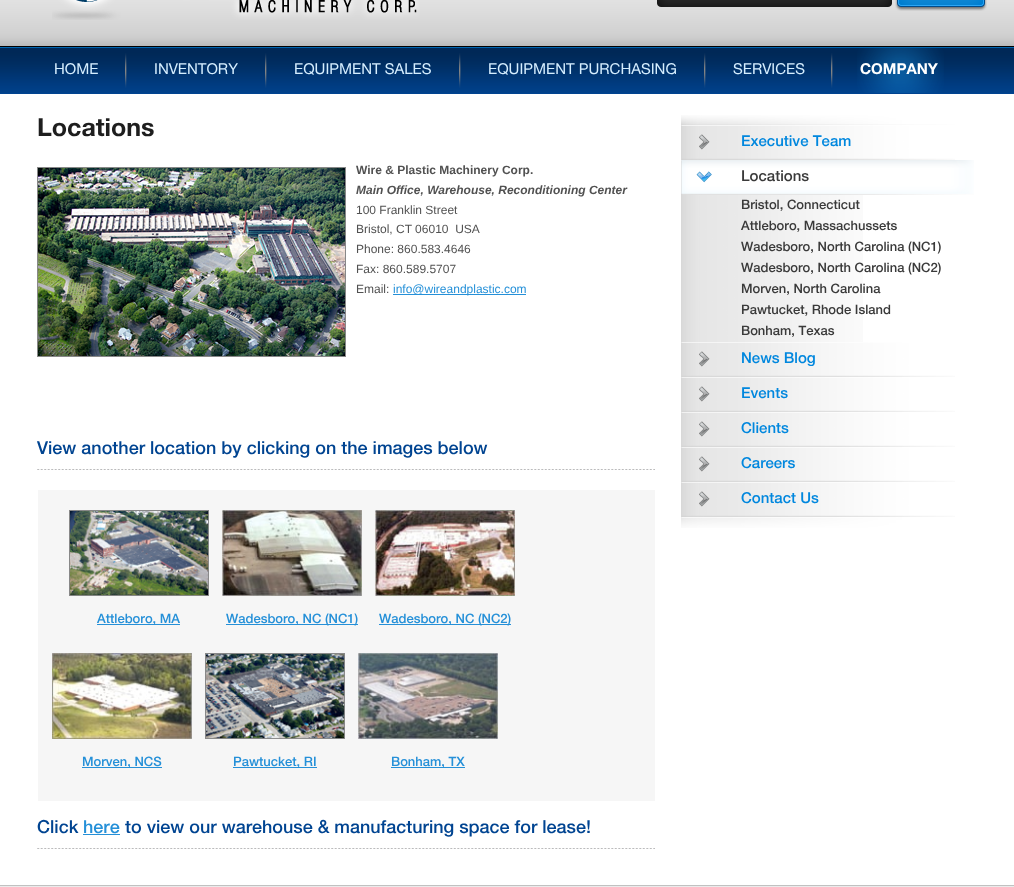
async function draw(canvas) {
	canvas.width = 1014;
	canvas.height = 887;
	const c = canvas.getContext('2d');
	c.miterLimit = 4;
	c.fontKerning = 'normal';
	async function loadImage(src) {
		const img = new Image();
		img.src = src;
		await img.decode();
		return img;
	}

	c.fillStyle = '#fff';
	c.fillRect(0, 0, 1014, 887);
	c.fillStyle = '#004390';
	c.fillRect(0, 93, 1014, 1);
	c.drawImage(await loadImage('img1.png'), 0, 0, 1014, 93);
	c.drawImage(await loadImage('img2.png'), 52, 0, 368, 20);
	c.drawImage(await loadImage('img3.png'), 657, 0, 235, 7);
	c.drawImage(await loadImage('img4.png'), 895, 0, 92, 11);
	c.drawImage(await loadImage('img5.png'), 125, 53, 2, 35);
	c.font = '15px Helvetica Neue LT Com';
	c.fillStyle = '#d5eeff';
	c.fillText('HOME', 54, 74);
	c.drawImage(await loadImage('img5.png'), 265, 53, 2, 35);
	c.fillText('INVENTORY', 154, 74);
	c.drawImage(await loadImage('img5.png'), 459, 53, 2, 35);
	c.fillText('EQUIPMENT SALES', 294, 74);
	c.drawImage(await loadImage('img5.png'), 704, 53, 2, 35);
	c.fillText('EQUIPMENT PURCHASING', 488, 74);
	c.drawImage(await loadImage('img5.png'), 831, 53, 2, 35);
	c.fillText('SERVICES', 733, 74);
	c.drawImage(await loadImage('img6.png'), 857, 48, 87, 45);
	c.font = 'bold 15px Helvetica Neue LT Com';
	c.fillStyle = '#fff';
	c.fillText('COMPANY', 860, 74);
	c.font = 'bold 25px Helvetica Neue LT Com';
	c.fillStyle = '#1e1e1e';
	c.fillText('Locations', 37, 136);
	c.drawImage(await loadImage('img7.png'), 37, 167, 309, 190);
	c.font = 'bold 12px Liberation Sans';
	c.fillStyle = '#515151';
	c.fillText('Wire & Plastic Machinery Corp.', 356, 174);
	c.font = 'italic bold 12px Liberation Sans';
	c.fillText('Main Office, Warehouse, Reconditioning Center', 356, 194);
	c.font = '12px Liberation Sans';
	for (const [text, x, y] of [
		['100 Franklin Street', 356, 214],
		['Bristol, CT 06010  USA', 356, 233],
		['Phone: 860.583.4646', 356, 253],
		['Fax: 860.589.5707', 356, 273],
		['Email:', 356, 293],
	]) {
		c.fillText(text, x, y);
	}
	c.fillStyle = '#2590d8';
	c.fillRect(393, 294, 133, 1);
	c.fillText('info@wireandplastic.com', 393, 293);
	c.drawImage(await loadImage('img8.png'), 37, 469, 618, 1);
	c.font = '500 18px Helvetica Neue LT Com';
	c.fillStyle = '#004491';
	c.fillText('View another location by clicking on the images below', 37, 454);
	c.fillStyle = '#f6f6f6';
	c.fillRect(38, 490, 617, 311);
	c.drawImage(await loadImage('img9.png'), 69, 510, 140, 86);
	c.fillStyle = '#2590d8';
	c.fillRect(97, 624, 83, 1);
	c.font = '500 13px Helvetica Neue LT Com';
	c.fillText('Attleboro, MA', 97, 623);
	c.drawImage(await loadImage('img10.png'), 222, 510, 140, 86);
	c.fillRect(226, 624, 132, 1);
	c.fillText('Wadesboro, NC (NC1)', 226, 623);
	c.drawImage(await loadImage('img11.png'), 375, 510, 140, 86);
	c.fillRect(379, 624, 132, 1);
	c.fillText('Wadesboro, NC (NC2)', 379, 623);
	c.drawImage(await loadImage('img12.png'), 52, 653, 140, 86);
	c.fillRect(82, 767, 80, 1);
	c.fillText('Morven, NCS', 82, 766);
	c.drawImage(await loadImage('img13.png'), 205, 653, 140, 86);
	c.fillRect(233, 767, 84, 1);
	c.fillText('Pawtucket, RI', 233, 766);
	c.drawImage(await loadImage('img14.png'), 358, 653, 140, 86);
	c.fillRect(391, 767, 74, 1);
	c.fillText('Bonham, TX', 391, 766);
	c.drawImage(await loadImage('img8.png'), 37, 848, 618, 1);
	c.font = '500 18px Helvetica Neue LT Com';
	c.fillStyle = '#004491';
	c.fillText('Click', 37, 833);
	c.fillStyle = '#2590d8';
	c.fillText('here', 83, 833);
	c.fillRect(83, 834, 37, 1);
	c.fillStyle = '#004491';
	c.fillText('to view our warehouse & manufacturing space for lease!', 125, 833);
	c.drawImage(await loadImage('img15.png'), 681, 115, 274, 413);
	c.drawImage(await loadImage('img16.png'), 681, 125, 274, 35);
	c.drawImage(await loadImage('img17.png'), 699, 134, 11, 16);
	c.font = '500 15px Helvetica Neue LT Com';
	c.fillStyle = '#0087de';
	c.fillText('Executive Team', 741, 146);
	c.drawImage(await loadImage('img18.png'), 681, 160, 293, 35);
	c.drawImage(await loadImage('img19.png'), 696, 171, 16, 12);
	c.fillStyle = '#3a3a3a';
	c.fillText('Locations', 741, 181);
	c.drawImage(await loadImage('img20.png'), 681, 195, 182, 21);
	c.font = '500 13px Helvetica Neue LT Com';
	c.fillText('Bristol, Connecticut', 741, 209);
	c.drawImage(await loadImage('img20.png'), 681, 216, 182, 21);
	c.fillText('Attleboro, Massachussets', 741, 230);
	c.drawImage(await loadImage('img20.png'), 681, 237, 182, 21);
	c.fillText('Wadesboro, North Carolina (NC1)', 741, 251);
	c.drawImage(await loadImage('img20.png'), 681, 258, 182, 21);
	c.fillText('Wadesboro, North Carolina (NC2)', 741, 272);
	c.drawImage(await loadImage('img20.png'), 681, 279, 182, 21);
	c.fillText('Morven, North Carolina', 741, 293);
	c.drawImage(await loadImage('img20.png'), 681, 300, 182, 21);
	c.fillText('Pawtucket, Rhode Island', 741, 314);
	c.drawImage(await loadImage('img20.png'), 681, 321, 182, 21);
	c.fillText('Bonham, Texas', 741, 335);
	c.drawImage(await loadImage('img16.png'), 681, 342, 274, 35);
	c.drawImage(await loadImage('img17.png'), 699, 351, 11, 16);
	c.font = '500 15px Helvetica Neue LT Com';
	c.fillStyle = '#0087de';
	c.fillText('News Blog', 741, 363);
	c.drawImage(await loadImage('img16.png'), 681, 377, 274, 35);
	c.drawImage(await loadImage('img17.png'), 699, 386, 11, 16);
	c.fillText('Events', 741, 398);
	c.drawImage(await loadImage('img16.png'), 681, 412, 274, 35);
	c.drawImage(await loadImage('img17.png'), 699, 421, 11, 16);
	c.fillText('Clients', 741, 433);
	c.drawImage(await loadImage('img16.png'), 681, 447, 274, 35);
	c.drawImage(await loadImage('img17.png'), 699, 456, 11, 16);
	c.fillText('Careers', 741, 468);
	c.drawImage(await loadImage('img16.png'), 681, 482, 274, 35);
	c.drawImage(await loadImage('img17.png'), 699, 491, 11, 16);
	c.fillText('Contact Us', 741, 503);
	c.fillStyle = '#ebebeb';
	c.fillRect(0, 886, 1014, 1);
	c.fillStyle = '#c1c1c1';
	c.fillRect(0, 885, 1014, 1);
}

draw(document.querySelector('canvas'));
